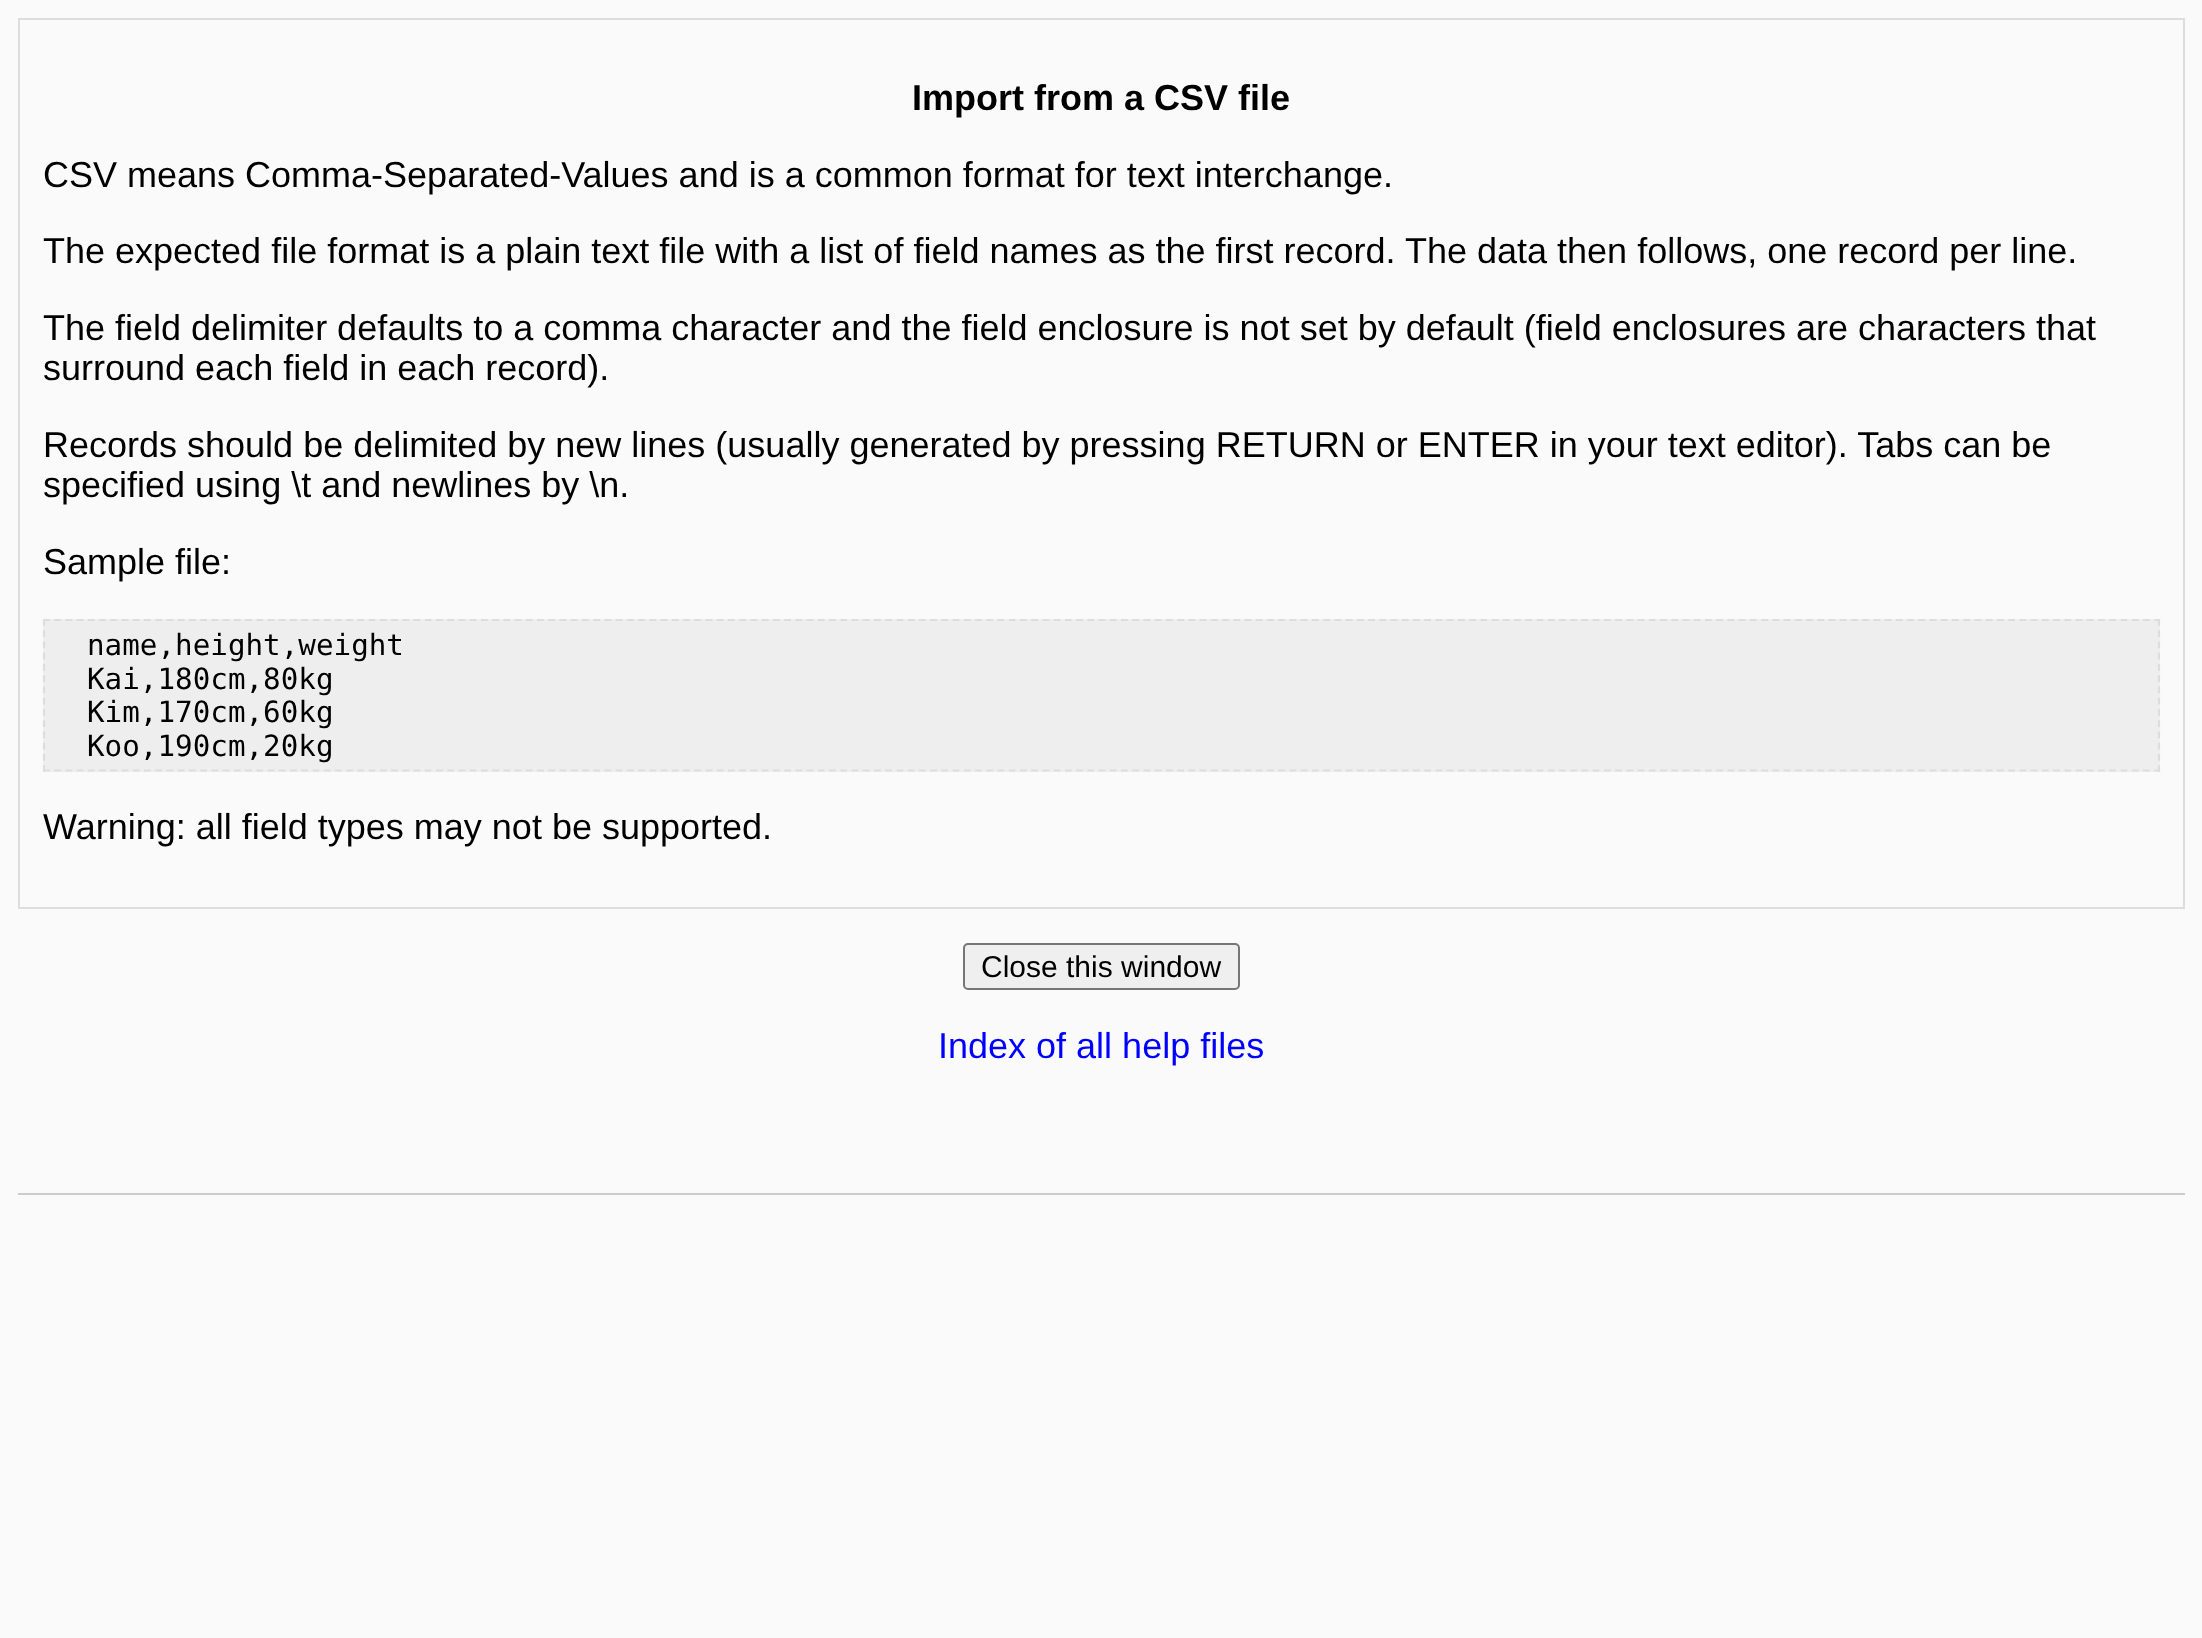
async function draw(canvas) {
	canvas.width = 2202;
	canvas.height = 1638;
	const c = canvas.getContext('2d');
	c.miterLimit = 4;
	c.fontKerning = 'normal';

	c.fillStyle = '#fafafa';
	c.fillRect(0, 0, 2202, 1638);
	c.strokeStyle = '#ddd';
	c.lineWidth = 2;
	c.strokeRect(19, 19, 2165, 889);
	c.font = 'bold 36px Liberation Sans';
	c.fillStyle = '#000';
	c.fillText('Import from a CSV file', 912, 110);
	c.font = '36px Liberation Sans';
	for (const [text, x, y] of [
		['CSV means Comma-Separated-Values and is a common format for text interchange.', 43, 187],
		['The expected file format is a plain text file with a list of field names as the first record. The data then follows, one record per line.', 43, 263],
		['The field delimiter defaults to a comma character and the field enclosure is not set by default (field enclosures are characters that', 43, 340],
		['surround each field in each record).', 43, 380],
		['Records should be delimited by new lines (usually generated by pressing RETURN or ENTER in your text editor). Tabs can be', 43, 457],
		['specified using \\t and newlines by \\n.', 43, 497],
		['Sample file:', 43, 574],
	]) {
		c.fillText(text, x, y);
	}
	c.fillStyle = '#eee';
	c.fillRect(43, 619, 2117, 153);
	c.beginPath();
	c.moveTo(43, 620);
	c.lineTo(2160, 620);
	c.lineWidth = 2.2;
	c.setLineDash([6.75, 4.48]);
	c.stroke();
	c.beginPath();
	c.moveTo(2159, 619);
	c.lineTo(2159, 772);
	c.setLineDash([6.75, 4.5]);
	c.stroke();
	c.beginPath();
	c.moveTo(43, 770.5);
	c.lineTo(2160, 770.5);
	c.setLineDash([6.75, 4.48]);
	c.stroke();
	c.beginPath();
	c.moveTo(44, 619);
	c.lineTo(44, 772);
	c.setLineDash([6.75, 4.5]);
	c.stroke();
	c.font = '29.25px DejaVu Sans Mono';
	c.fillStyle = '#000';
	for (const [text, x, y] of [
		['name,height,weight', 87, 655],
		['Kai,180cm,80kg', 87, 689],
		['Kim,170cm,60kg', 87, 722],
		['Koo,190cm,20kg', 87, 756],
	]) {
		c.fillText(text, x, y);
	}
	c.font = '36px Liberation Sans';
	c.fillText('Warning: all field types may not be supported.', 43, 839);
	c.fillStyle = '#efefef';
	c.beginPath();
	c.roundRect(964, 944, 275, 45, 4);
	c.fill();
	c.strokeStyle = '#767676';
	c.lineWidth = 2;
	c.setLineDash([]);
	c.stroke();
	c.font = '30px Liberation Sans';
	c.fillStyle = '#000';
	c.fillText('Close this window', 981, 977);
	c.font = '36px Liberation Sans';
	c.fillStyle = '#00f';
	c.fillText('Index of all help files', 938, 1058);
	c.fillStyle = '#ccc';
	c.fillRect(18, 1193, 2167, 2);
}

draw(document.querySelector('canvas'));
